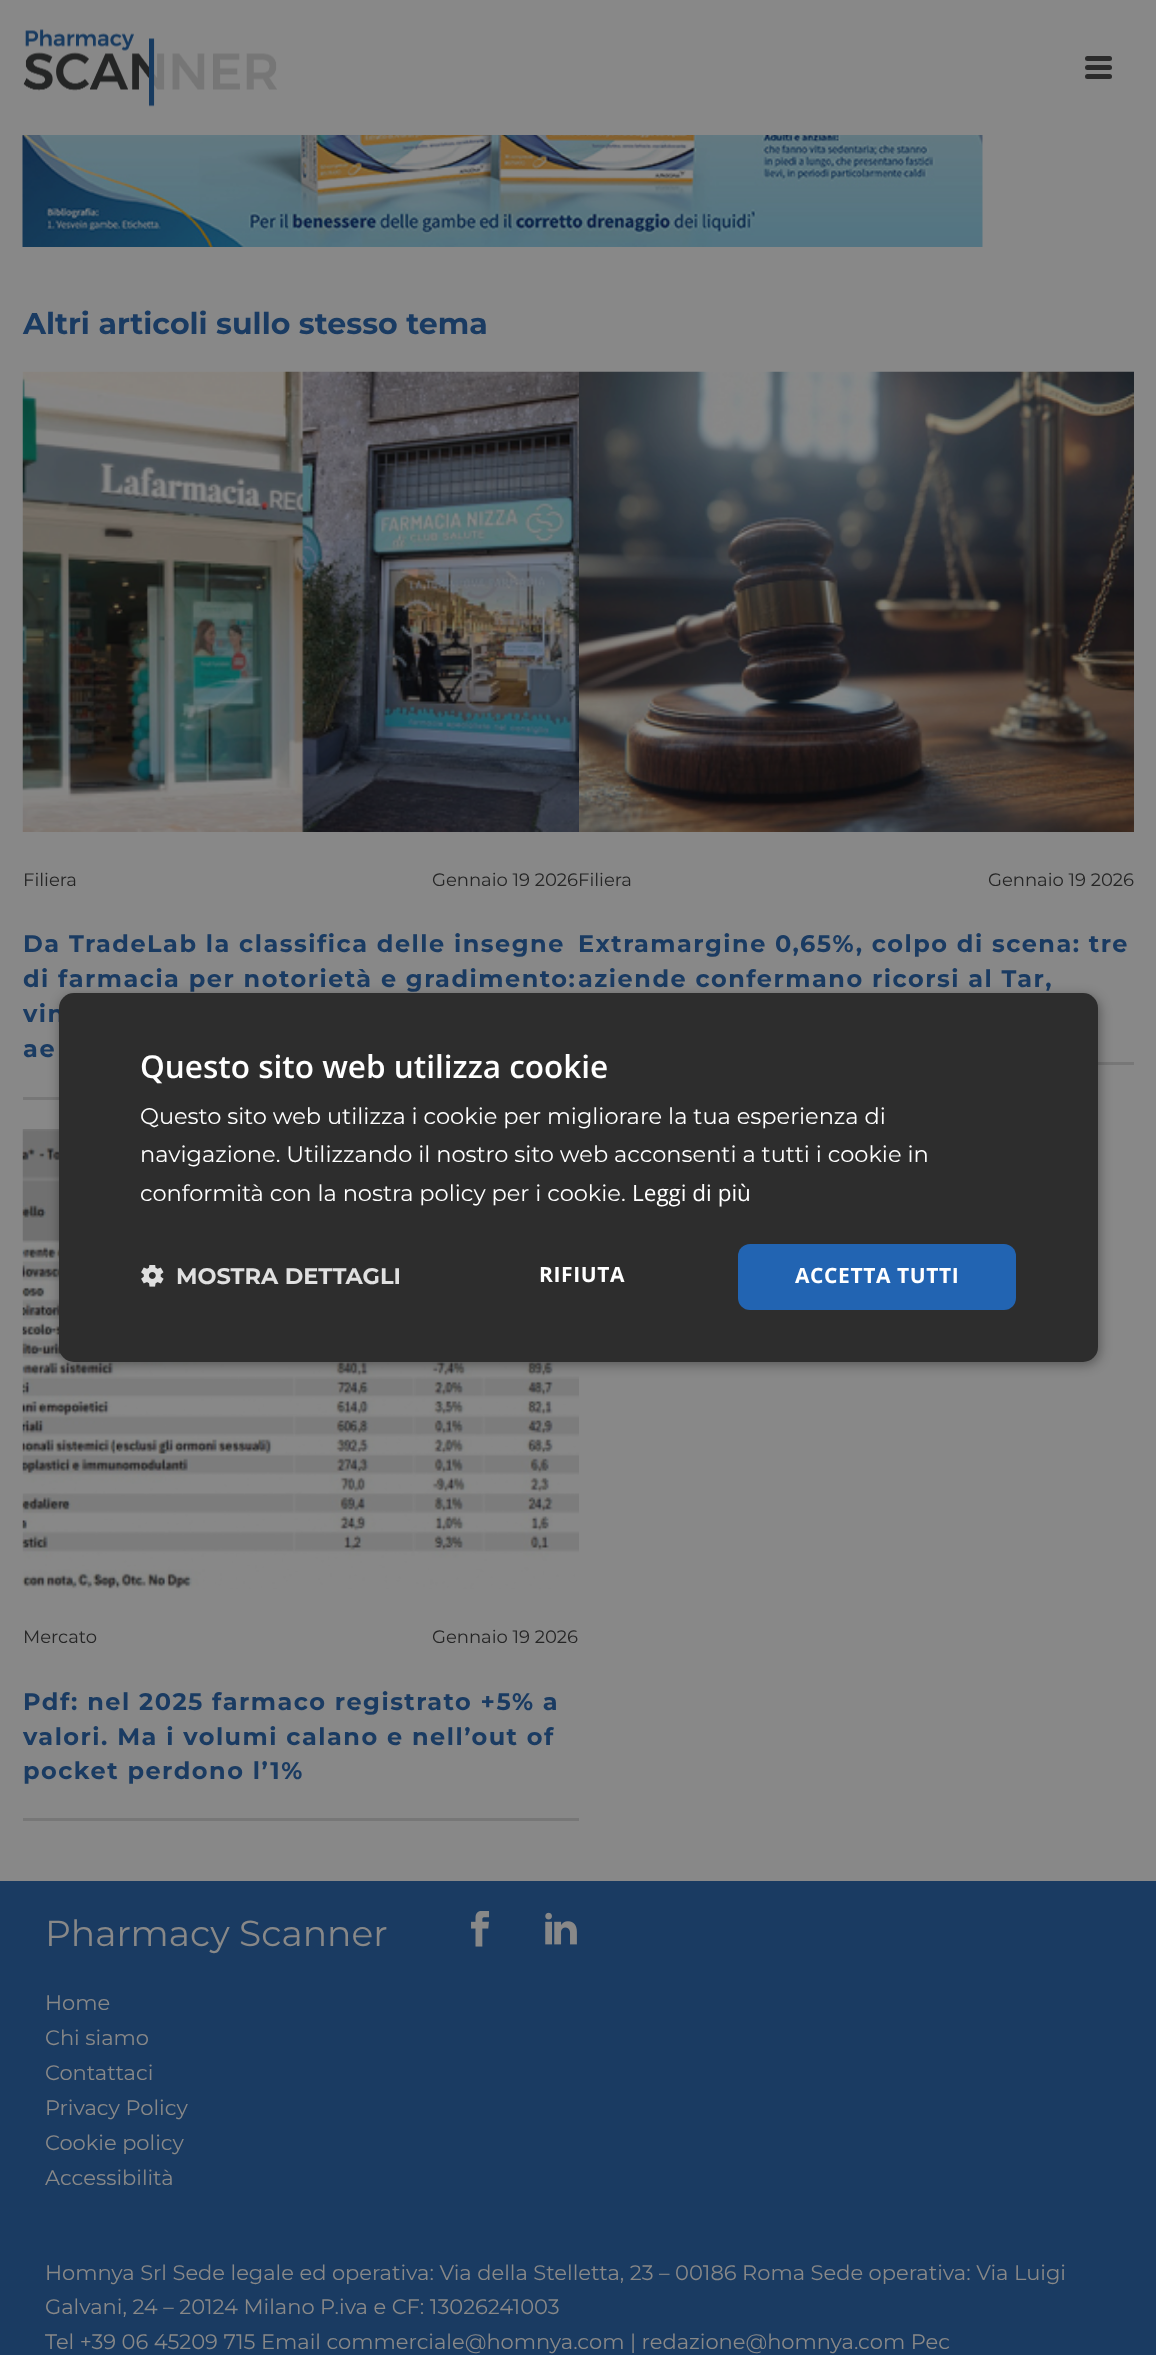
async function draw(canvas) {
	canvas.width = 1156;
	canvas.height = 2355;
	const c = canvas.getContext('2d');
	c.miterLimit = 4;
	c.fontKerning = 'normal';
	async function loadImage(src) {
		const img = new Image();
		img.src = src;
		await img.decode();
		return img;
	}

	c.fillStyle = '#1a3b62';
	c.fillRect(0, 0, 1156, 2355);
	c.fillStyle = '#888';
	c.fillRect(0, 0, 1156, 1881);
	c.drawImage(await loadImage('img1.png'), 23, 29, 254, 78);
	c.fillStyle = '#2b2b2b';
	c.beginPath();
	c.roundRect(1085, 56, 27, 5, 2.5);
	c.fill();
	c.beginPath();
	c.roundRect(1085, 65, 27, 5, 2.5);
	c.fill();
	c.beginPath();
	c.roundRect(1085, 74, 27, 5, 2.5);
	c.fill();
	c.drawImage(await loadImage('img2.png'), 22, 135, 961, 112);
	c.font = 'bold 30px Montserrat';
	c.fillStyle = '#1a3b62';
	c.fillText('Altri articoli sullo stesso tema', 23, 334);
	c.fillStyle = '#777';
	c.fillRect(23, 1097, 36, 3);
	c.drawImage(await loadImage('img3.png'), 22, 371, 557, 461);
	c.font = '18px Montserrat';
	c.fillStyle = '#252525';
	c.fillText('Filiera', 23, 886);
	c.fillText('Gennaio 19 2026Filiera', 432, 886);
	c.letterSpacing = '1.5px';
	c.font = 'bold 24px Montserrat';
	c.fillStyle = '#1a3b62';
	for (const [text, x, y] of [
		['Da TradeLab la classifica delle insegne', 23, 952],
		['di farmacia per notorietà e gradimento:', 23, 987],
		['vin', 23, 1022],
		['ae', 23, 1057],
	]) {
		c.fillText(text, x, y);
	}
	c.fillStyle = '#777';
	c.fillRect(1098, 1062, 36, 3);
	c.drawImage(await loadImage('img4.png'), 579, 371, 555, 461);
	c.letterSpacing = '0px';
	c.font = '18px Montserrat';
	c.fillStyle = '#252525';
	c.fillText('Gennaio 19 2026', 988, 886);
	c.letterSpacing = '1.5px';
	c.font = 'bold 24px Montserrat';
	c.fillStyle = '#1a3b62';
	c.fillText('Extramargine 0,65%, colpo di scena: tre', 578, 952);
	c.fillText('aziende confermano ricorsi al Tar,', 578, 987);
	c.fillStyle = '#777';
	c.fillRect(23, 1818, 556, 3);
	c.drawImage(await loadImage('img5.png'), 22, 1129, 557, 460);
	c.letterSpacing = '0px';
	c.font = '18px Montserrat';
	c.fillStyle = '#252525';
	c.fillText('Mercato', 23, 1643);
	c.fillText('Gennaio 19 2026', 432, 1643);
	c.letterSpacing = '1.5px';
	c.font = 'bold 24px Montserrat';
	c.fillStyle = '#1a3b62';
	for (const [text, x, y] of [
		['Pdf: nel 2025 farmaco registrato +5% a', 23, 1710],
		['valori. Ma i volumi calano e nell’out of', 23, 1745],
		['pocket perdono l’1%', 23, 1779],
	]) {
		c.fillText(text, x, y);
	}
	c.letterSpacing = '0px';
	c.font = '36px Montserrat';
	c.fillStyle = '#888';
	c.fillText('Pharmacy Scanner', 45, 1946);
	c.font = '21px Montserrat';
	for (const [text, x, y] of [
		['Home', 45, 2010],
		['Chi siamo', 45, 2045],
		['Contattaci', 45, 2080],
		['Privacy Policy', 45, 2115],
		['Cookie policy', 45, 2150],
		['Accessibilità', 45, 2185],
	]) {
		c.fillText(text, x, y);
	}
	c.drawImage(await loadImage('img6.png'), 471, 1911, 19, 36);
	c.drawImage(await loadImage('img7.png'), 545, 1912, 32, 33);
	for (const [text, x, y] of [
		['Homnya Srl Sede legale ed operativa: Via della Stelletta, 23 – 00186 Roma Sede operativa: Via Luigi', 45, 2280],
		['Galvani, 24 – 20124 Milano P.iva e CF: 13026241003', 45, 2314],
		['Tel +39 06 45209 715 Email commerciale@homnya.com | redazione@homnya.com Pec', 45, 2349],
	]) {
		c.fillText(text, x, y);
	}
	c.fillStyle = '#00000059';
	c.filter = 'blur(6px)';
	c.beginPath();
	c.roundRect(60, 996, 1040, 369, 15);
	c.fill();
	c.filter = 'none';
	c.fillStyle = '#2d2d2d';
	c.beginPath();
	c.roundRect(59, 993, 1039, 369, 15);
	c.fill();
	c.font = '600 31.5px Open Sans';
	c.fillStyle = '#fff';
	c.fillText('Questo sito web utilizza cookie', 140, 1078);
	c.font = '22.5px Montserrat';
	for (const [text, x, y] of [
		['Questo sito web utilizza i cookie per migliorare la tua esperienza di', 140, 1124],
		['navigazione. Utilizzando il nostro sito web acconsenti a tutti i cookie in', 140, 1162],
		['conformità con la nostra policy per i cookie.', 140, 1201],
	]) {
		c.fillText(text, x, y);
	}
	c.font = '22.5px Open Sans';
	c.fillText('Leggi di più', 632, 1201);
	c.drawImage(await loadImage('img8.png'), 141, 1265, 23, 22);
	c.font = 'bold 22.5px Montserrat';
	c.fillStyle = '#e0e0e0';
	c.fillText('MOSTRA DETTAGLI', 176, 1284);
	c.letterSpacing = '0.6px';
	c.font = 'bold 21px Open Sans';
	c.fillStyle = '#fff';
	c.fillText('RIFIUTA', 539, 1282);
	c.fillStyle = '#2264b2';
	c.beginPath();
	c.roundRect(738, 1244, 278, 66, 12);
	c.fill();
	c.fillStyle = '#fff';
	c.fillText('ACCETTA TUTTI', 795, 1283);
}

draw(document.querySelector('canvas'));
